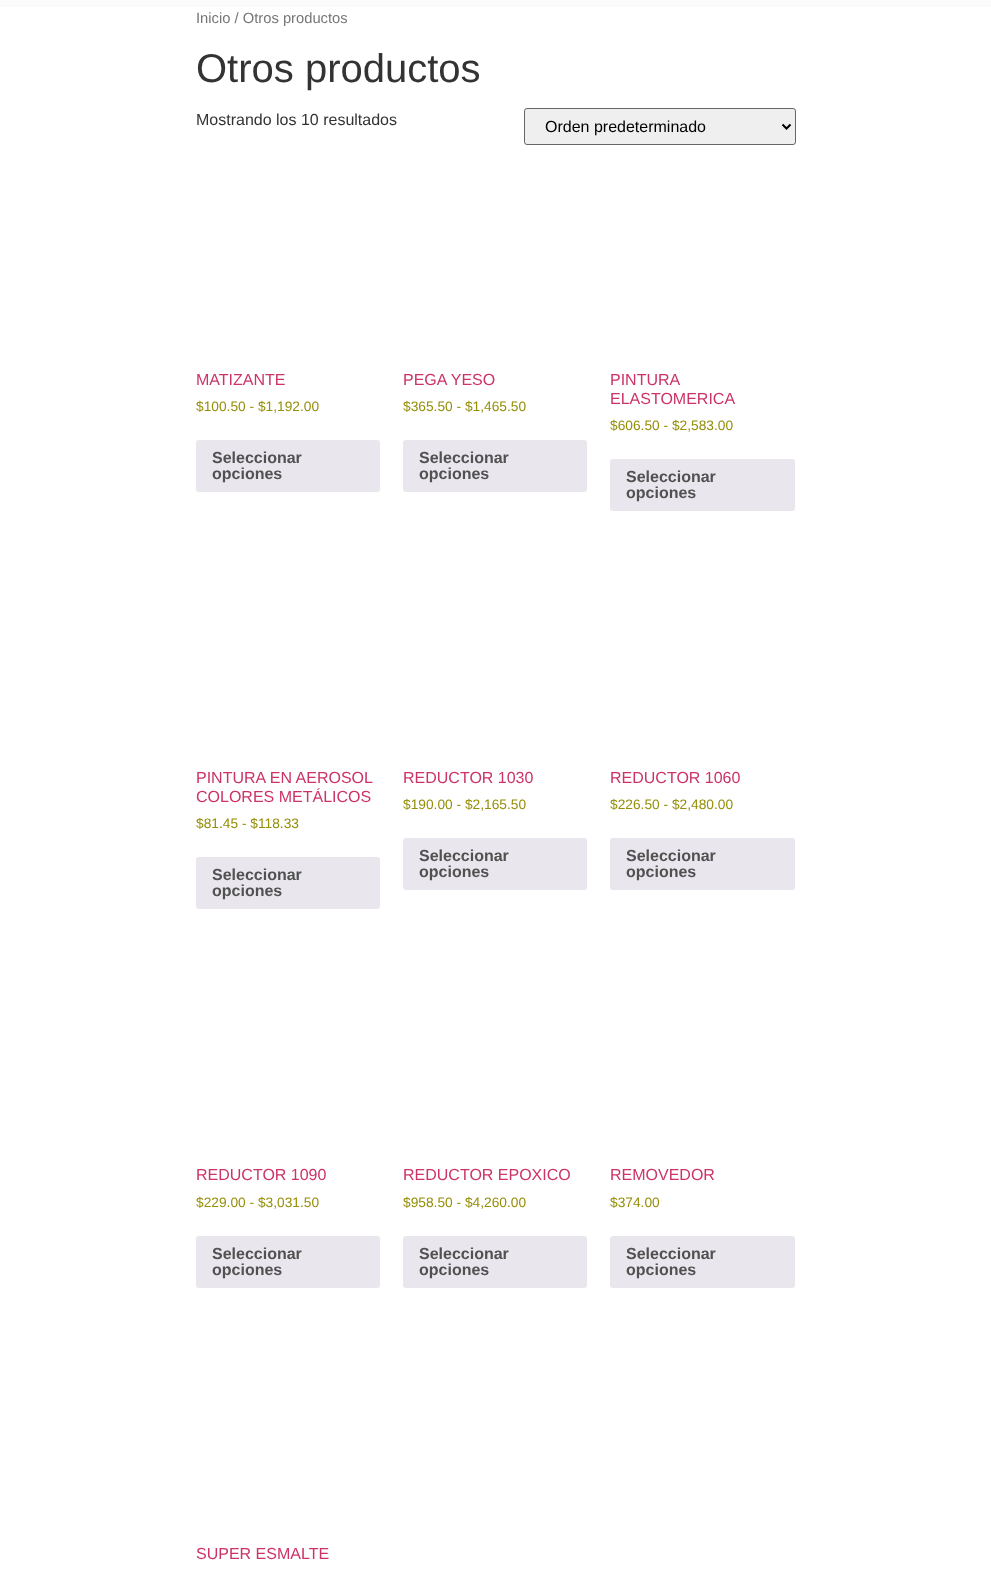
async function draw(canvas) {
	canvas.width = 991;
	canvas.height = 1574;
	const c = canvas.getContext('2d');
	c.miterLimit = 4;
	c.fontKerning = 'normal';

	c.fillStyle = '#fff';
	c.fillRect(0, 0, 991, 1574);
	c.fillStyle = '#fcfbfb';
	c.fillRect(0, 0, 991, 7);
	c.font = '14.75px Liberation Sans';
	c.fillStyle = '#767676';
	c.fillText('Inicio / Otros productos', 196, 23);
	c.font = '40px Liberation Sans';
	c.fillStyle = '#333';
	c.fillText('Otros productos', 196, 82);
	c.font = '16px Liberation Sans';
	c.fillText('Mostrando los 10 resultados', 196, 125);
	c.fillStyle = '#efefef';
	c.beginPath();
	c.roundRect(524.5, 108.5, 271, 36, 2.5);
	c.fill();
	c.strokeStyle = '#666';
	c.stroke();
	c.beginPath();
	c.moveTo(782.5, 124.5);
	c.lineTo(786.5, 128.5);
	c.lineTo(790.5, 124.5);
	c.strokeStyle = '#000';
	c.lineWidth = 2;
	c.stroke();
	c.fillStyle = '#000';
	c.fillText('Orden predeterminado', 545, 132);
	c.fillStyle = '#c36';
	c.fillText('MATIZANTE', 196, 385);
	c.font = '13.75px Liberation Sans';
	c.fillStyle = '#958e09';
	c.fillText('$100.50 - $1,192.00', 196, 411);
	c.fillStyle = '#e9e6ed';
	c.beginPath();
	c.roundRect(196, 440, 184, 52, 3);
	c.fill();
	c.font = 'bold 16px Liberation Sans';
	c.fillStyle = '#515151';
	c.fillText('Seleccionar', 212, 463);
	c.fillText('opciones', 212, 479);
	c.font = '16px Liberation Sans';
	c.fillStyle = '#c36';
	c.fillText('PEGA YESO', 403, 385);
	c.font = '13.75px Liberation Sans';
	c.fillStyle = '#958e09';
	c.fillText('$365.50 - $1,465.50', 403, 411);
	c.fillStyle = '#e9e6ed';
	c.beginPath();
	c.roundRect(403, 440, 184, 52, 3);
	c.fill();
	c.font = 'bold 16px Liberation Sans';
	c.fillStyle = '#515151';
	c.fillText('Seleccionar', 419, 463);
	c.fillText('opciones', 419, 479);
	c.font = '16px Liberation Sans';
	c.fillStyle = '#c36';
	c.fillText('PINTURA', 610, 385);
	c.fillText('ELASTOMERICA', 610, 404);
	c.font = '13.75px Liberation Sans';
	c.fillStyle = '#958e09';
	c.fillText('$606.50 - $2,583.00', 610, 430);
	c.fillStyle = '#e9e6ed';
	c.beginPath();
	c.roundRect(610, 459, 185, 52, 3);
	c.fill();
	c.font = 'bold 16px Liberation Sans';
	c.fillStyle = '#515151';
	c.fillText('Seleccionar', 626, 482);
	c.fillText('opciones', 626, 498);
	c.font = '16px Liberation Sans';
	c.fillStyle = '#c36';
	c.fillText('PINTURA EN AEROSOL', 196, 783);
	c.fillText('COLORES METÁLICOS', 196, 802);
	c.font = '13.75px Liberation Sans';
	c.fillStyle = '#958e09';
	c.fillText('$81.45 - $118.33', 196, 828);
	c.fillStyle = '#e9e6ed';
	c.beginPath();
	c.roundRect(196, 857, 184, 52, 3);
	c.fill();
	c.font = 'bold 16px Liberation Sans';
	c.fillStyle = '#515151';
	c.fillText('Seleccionar', 212, 880);
	c.fillText('opciones', 212, 896);
	c.font = '16px Liberation Sans';
	c.fillStyle = '#c36';
	c.fillText('REDUCTOR 1030', 403, 783);
	c.font = '13.75px Liberation Sans';
	c.fillStyle = '#958e09';
	c.fillText('$190.00 - $2,165.50', 403, 809);
	c.fillStyle = '#e9e6ed';
	c.beginPath();
	c.roundRect(403, 838, 184, 52, 3);
	c.fill();
	c.font = 'bold 16px Liberation Sans';
	c.fillStyle = '#515151';
	c.fillText('Seleccionar', 419, 861);
	c.fillText('opciones', 419, 877);
	c.font = '16px Liberation Sans';
	c.fillStyle = '#c36';
	c.fillText('REDUCTOR 1060', 610, 783);
	c.font = '13.75px Liberation Sans';
	c.fillStyle = '#958e09';
	c.fillText('$226.50 - $2,480.00', 610, 809);
	c.fillStyle = '#e9e6ed';
	c.beginPath();
	c.roundRect(610, 838, 185, 52, 3);
	c.fill();
	c.font = 'bold 16px Liberation Sans';
	c.fillStyle = '#515151';
	c.fillText('Seleccionar', 626, 861);
	c.fillText('opciones', 626, 877);
	c.font = '16px Liberation Sans';
	c.fillStyle = '#c36';
	c.fillText('REDUCTOR 1090', 196, 1180);
	c.font = '13.75px Liberation Sans';
	c.fillStyle = '#958e09';
	c.fillText('$229.00 - $3,031.50', 196, 1207);
	c.fillStyle = '#e9e6ed';
	c.beginPath();
	c.roundRect(196, 1236, 184, 52, 3);
	c.fill();
	c.font = 'bold 16px Liberation Sans';
	c.fillStyle = '#515151';
	c.fillText('Seleccionar', 212, 1259);
	c.fillText('opciones', 212, 1275);
	c.font = '16px Liberation Sans';
	c.fillStyle = '#c36';
	c.fillText('REDUCTOR EPOXICO', 403, 1180);
	c.font = '13.75px Liberation Sans';
	c.fillStyle = '#958e09';
	c.fillText('$958.50 - $4,260.00', 403, 1207);
	c.fillStyle = '#e9e6ed';
	c.beginPath();
	c.roundRect(403, 1236, 184, 52, 3);
	c.fill();
	c.font = 'bold 16px Liberation Sans';
	c.fillStyle = '#515151';
	c.fillText('Seleccionar', 419, 1259);
	c.fillText('opciones', 419, 1275);
	c.font = '16px Liberation Sans';
	c.fillStyle = '#c36';
	c.fillText('REMOVEDOR', 610, 1180);
	c.font = '13.75px Liberation Sans';
	c.fillStyle = '#958e09';
	c.fillText('$374.00', 610, 1207);
	c.fillStyle = '#e9e6ed';
	c.beginPath();
	c.roundRect(610, 1236, 185, 52, 3);
	c.fill();
	c.font = 'bold 16px Liberation Sans';
	c.fillStyle = '#515151';
	c.fillText('Seleccionar', 626, 1259);
	c.fillText('opciones', 626, 1275);
	c.font = '16px Liberation Sans';
	c.fillStyle = '#c36';
	c.fillText('SUPER ESMALTE', 196, 1559);
}

draw(document.querySelector('canvas'));
